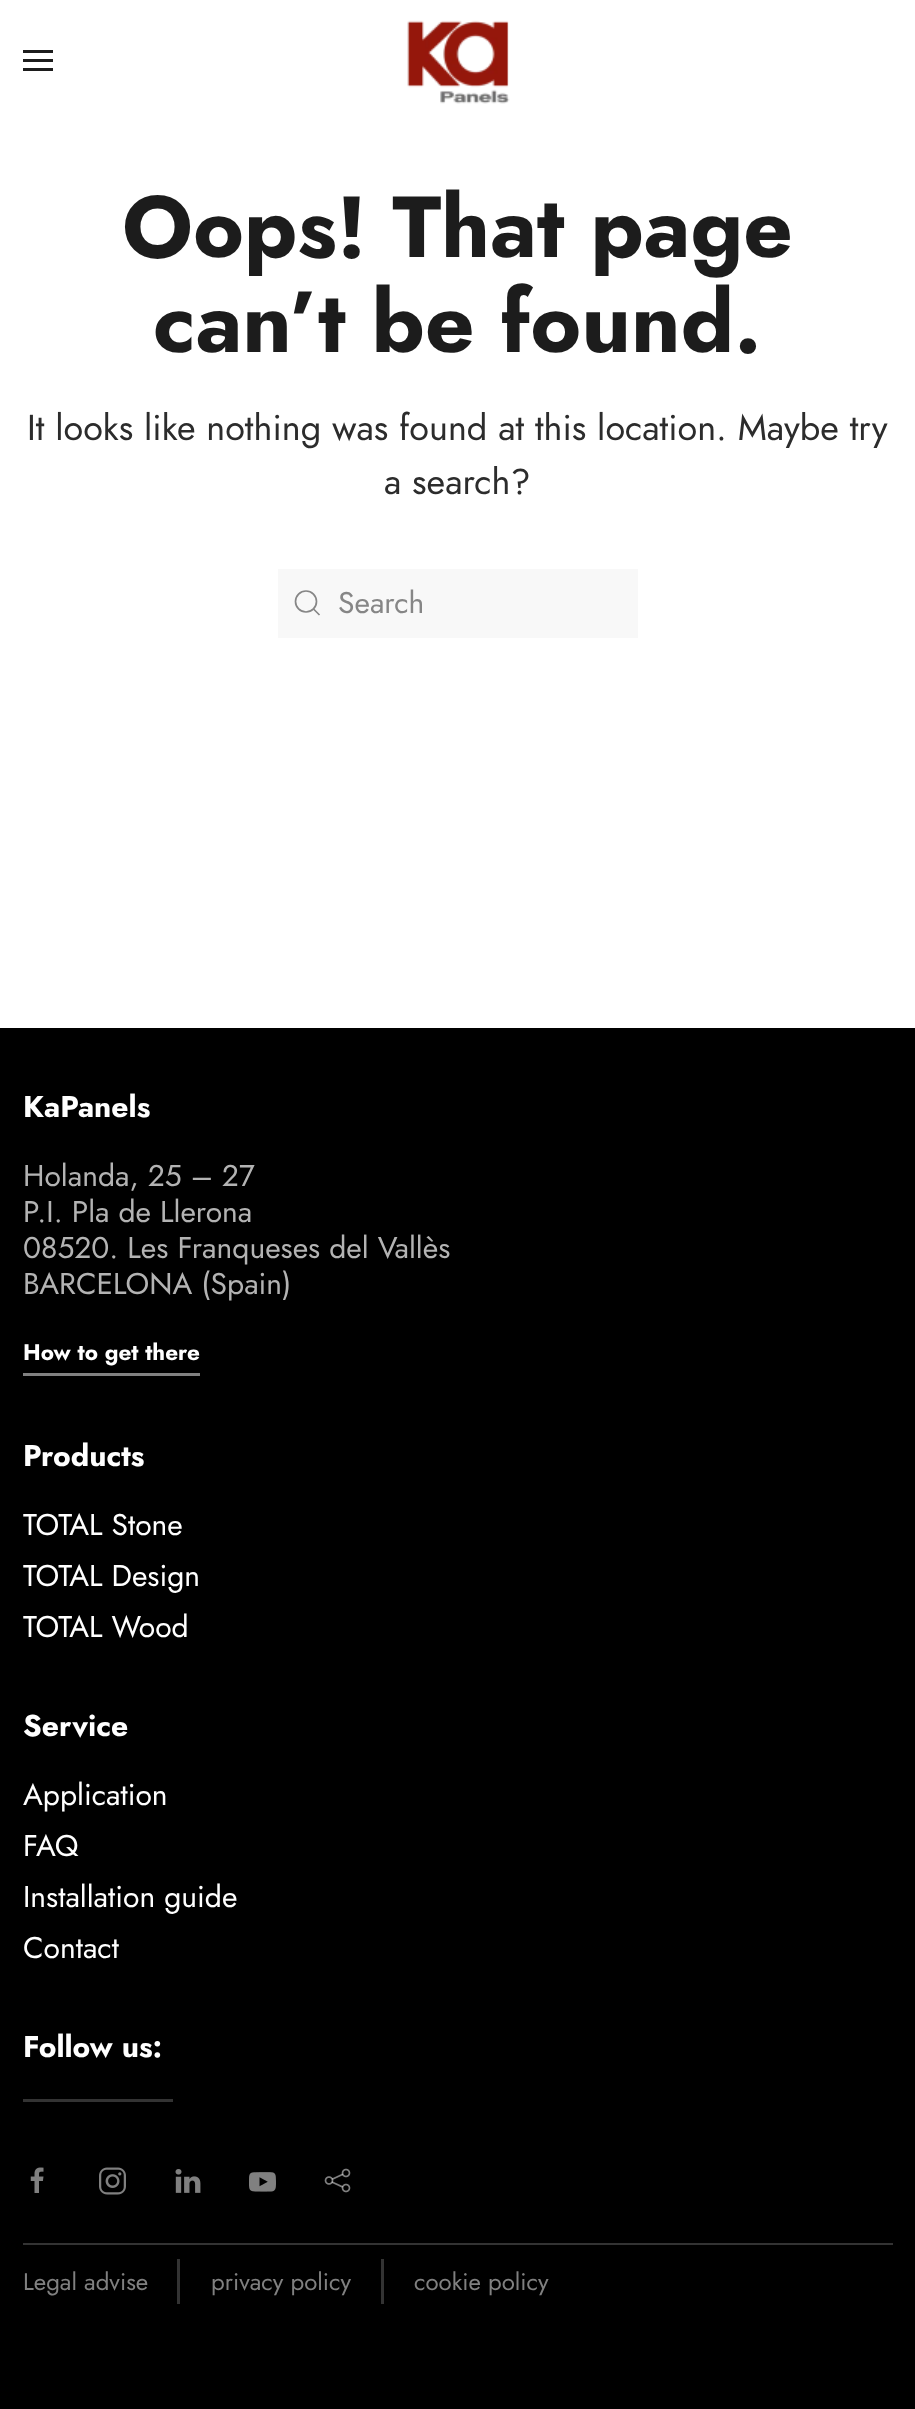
async function draw(canvas) {
	canvas.width = 915;
	canvas.height = 2409;
	const c = canvas.getContext('2d');
	c.miterLimit = 4;
	c.fontKerning = 'normal';
	async function loadImage(src) {
		const img = new Image();
		img.src = src;
		await img.decode();
		return img;
	}

	c.fillStyle = '#fff';
	c.fillRect(0, 0, 915, 2409);
	for (const [x, y, w, h, color] of [
		[23, 50, 30, 3, '#1c1c1c'],
		[23, 59, 30, 3, '#1c1c1c'],
		[23, 68, 30, 3, '#1c1c1c'],
	]) {
		c.fillStyle = color;
		c.fillRect(x, y, w, h);
	}
	c.drawImage(await loadImage('img1.png'), 407, 20, 103, 84);
	c.font = 'bold 86.5px Jost';
	c.fillText('Oops! That page', 122, 257);
	c.fillText('can’t be found.', 153, 352);
	c.font = '36px Jost';
	c.fillStyle = '#2c2c2c';
	c.fillText('It looks like nothing was found at this location. Maybe try', 27, 440);
	c.fillText('a search?', 384, 494);
	c.fillStyle = '#f8f8f8';
	c.fillRect(278, 569, 360, 69);
	c.beginPath();
	c.arc(306, 601.5, 10.5, 0, 2 * Math.PI);
	c.strokeStyle = '#868686';
	c.lineWidth = 1.7;
	c.stroke();
	c.beginPath();
	c.moveTo(313.5, 609);
	c.lineTo(319.5, 615);
	c.closePath();
	c.stroke();
	c.font = '30px Jost';
	c.fillStyle = '#868686';
	c.fillText('Search', 338, 613);
	c.fillStyle = '#000';
	c.fillRect(0, 1028, 915, 1381);
	c.font = 'bold 30px Jost';
	c.fillStyle = '#fff';
	c.fillText('KaPanels', 23, 1117);
	c.font = '30px Jost';
	c.fillStyle = '#b3b3b3';
	for (const [text, x, y] of [
		['Holanda, 25 – 27', 23, 1186],
		['P.I. Pla de Llerona', 23, 1222],
		['08520. Les Franqueses del Vallès', 23, 1258],
		['BARCELONA (Spain)', 23, 1294],
	]) {
		c.fillText(text, x, y);
	}
	c.fillStyle = '#808080';
	c.fillRect(23, 1373, 177, 3);
	c.font = 'bold 22.5px Jost';
	c.fillStyle = '#fff';
	c.fillText('How to get there', 23, 1360);
	c.font = 'bold 30px Jost';
	c.fillText('Products', 23, 1466);
	c.font = '30px Jost';
	for (const [text, x, y] of [
		['TOTAL Stone', 23, 1535],
		['TOTAL Design', 23, 1586],
		['TOTAL Wood', 23, 1637],
	]) {
		c.fillText(text, x, y);
	}
	c.font = 'bold 30px Jost';
	c.fillText('Service', 23, 1736);
	c.font = '30px Jost';
	for (const [text, x, y] of [
		['Application', 23, 1805],
		['FAQ', 23, 1856],
		['Installation guide', 23, 1907],
		['Contact', 23, 1958],
	]) {
		c.fillText(text, x, y);
	}
	c.font = 'bold 30px Jost';
	c.fillText('Follow us:', 23, 2057);
	c.fillStyle = '#333';
	c.fillRect(23, 2099, 150, 3);
	c.drawImage(await loadImage('img2.png'), 30, 2167, 14, 26);
	c.drawImage(await loadImage('img3.png'), 99, 2167, 27, 28);
	c.drawImage(await loadImage('img4.png'), 175, 2169, 26, 24);
	c.drawImage(await loadImage('img5.png'), 249, 2172, 27, 20);
	c.drawImage(await loadImage('img6.png'), 324, 2168, 27, 25);
	c.fillRect(23, 2243, 870, 2);
	c.font = '24px Jost';
	c.fillStyle = '#808080';
	c.fillText('Legal advise', 23, 2290);
	c.fillStyle = '#333';
	c.fillRect(177, 2259, 3, 45);
	c.fillStyle = '#808080';
	c.fillText('privacy policy', 211, 2290);
	c.fillStyle = '#333';
	c.fillRect(381, 2259, 3, 45);
	c.fillStyle = '#808080';
	c.fillText('cookie policy', 414, 2290);
}

draw(document.querySelector('canvas'));
